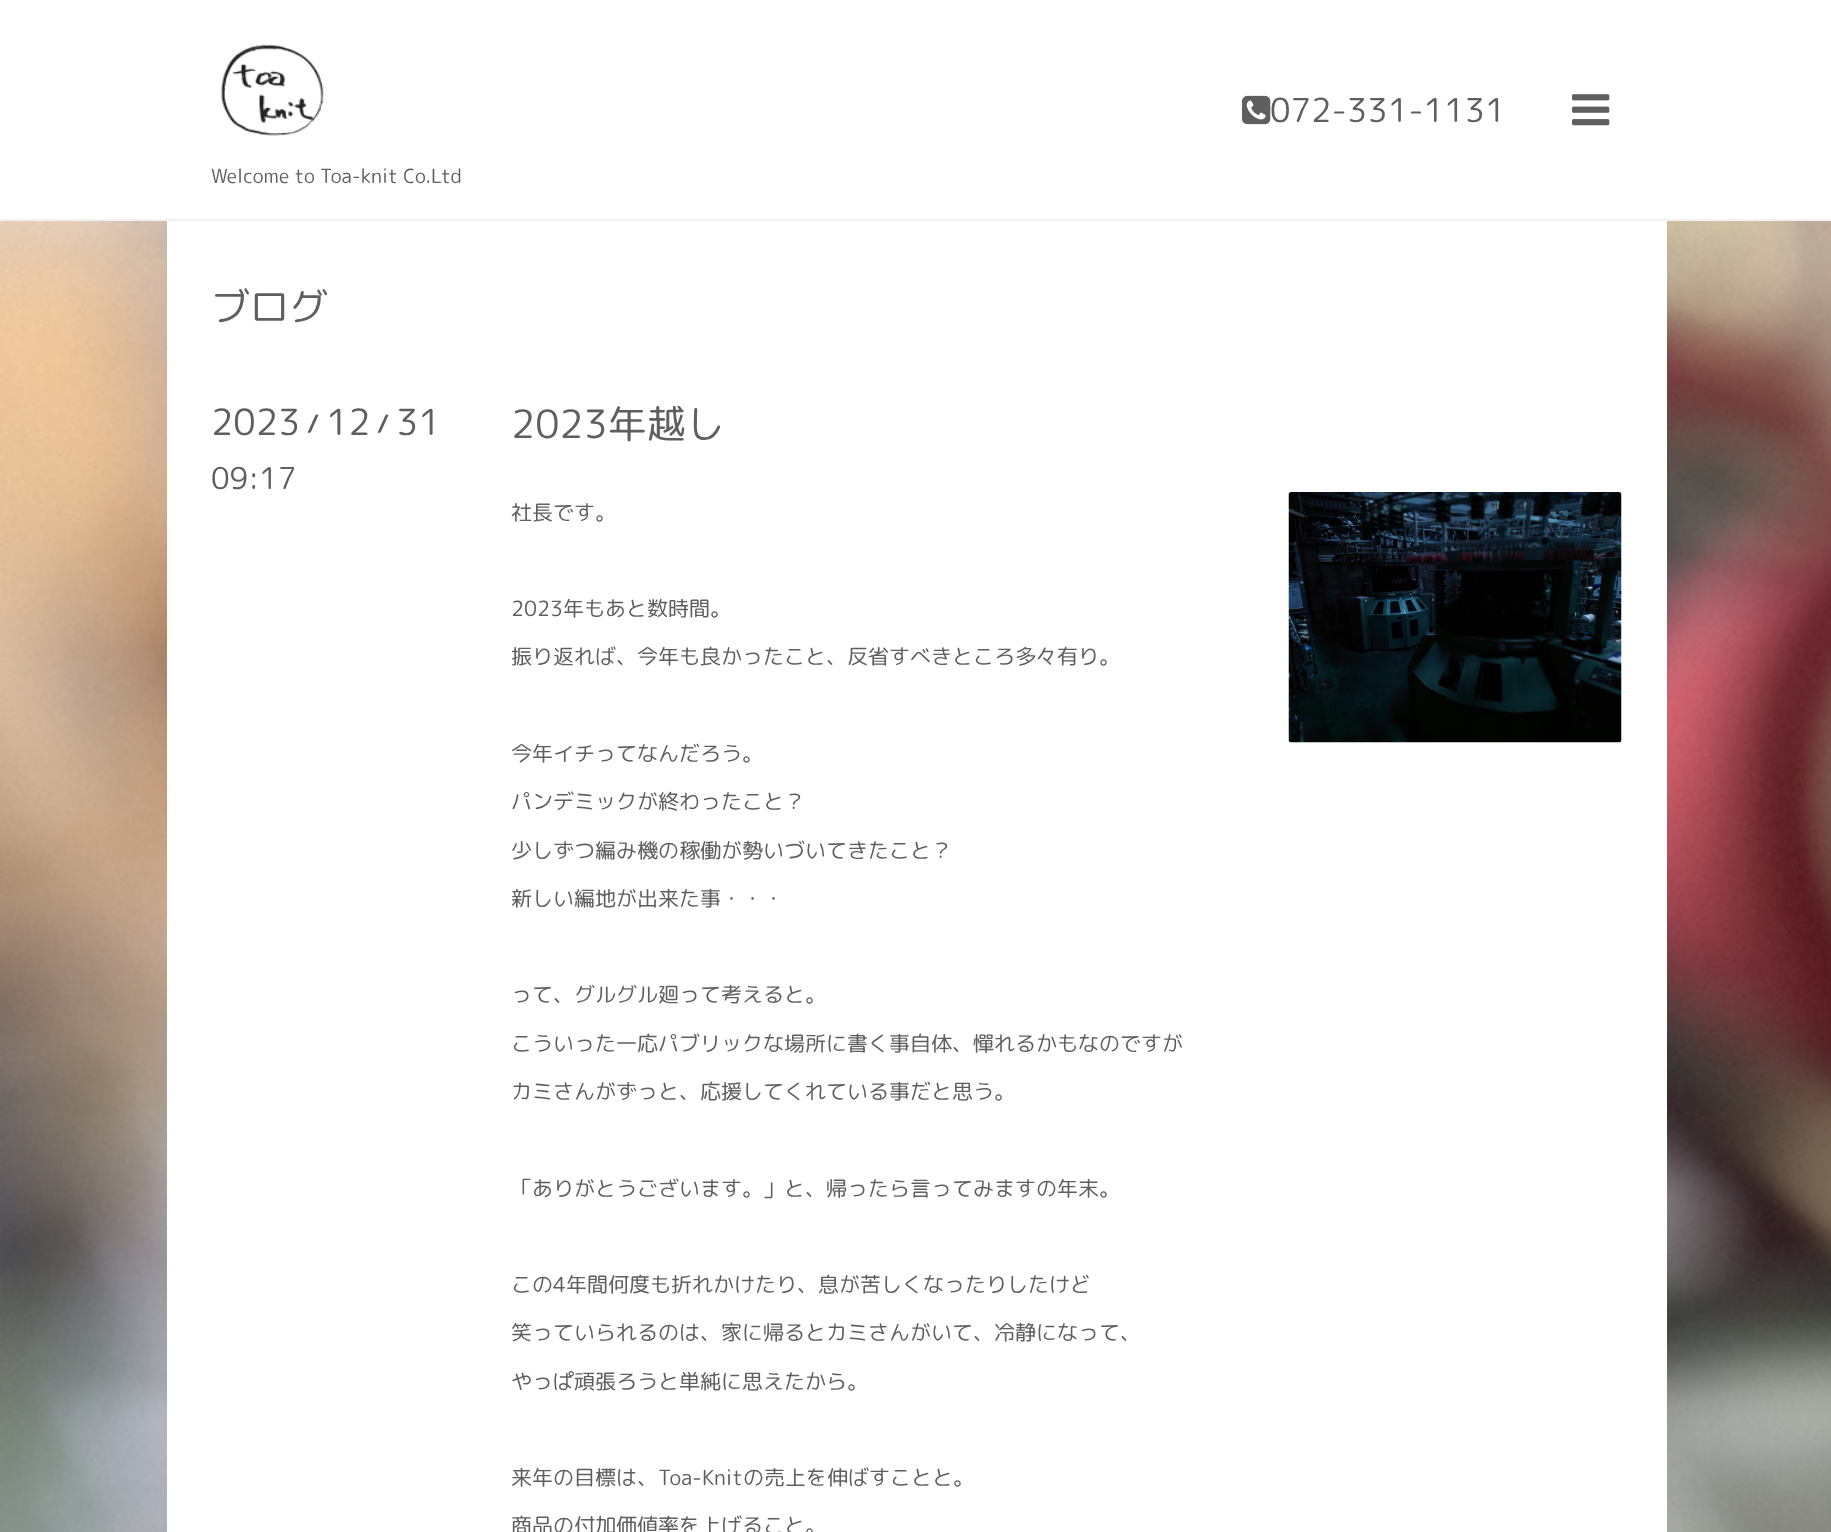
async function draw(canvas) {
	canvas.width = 1831;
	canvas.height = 1532;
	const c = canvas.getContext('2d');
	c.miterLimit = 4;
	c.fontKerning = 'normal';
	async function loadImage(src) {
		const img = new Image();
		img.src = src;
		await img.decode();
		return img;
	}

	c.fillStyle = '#fff';
	c.fillRect(0, 0, 1831, 1532);
	c.drawImage(await loadImage('img1.png'), 0, 221, 1831, 1311);
	c.fillStyle = '#f2f2f2';
	c.fillRect(0, 219, 1831, 2);
	c.drawImage(await loadImage('img2.png'), 1242, 95, 29, 30);
	c.font = '33px "Rounded Mplus 1c"';
	c.fillStyle = '#5f5f5f';
	c.fillText('072-331-1131', 1270, 122);
	c.drawImage(await loadImage('img3.png'), 1572, 94, 38, 32);
	c.drawImage(await loadImage('img4.png'), 221, 44, 103, 92);
	c.font = '19.5px "Rounded Mplus 1c"';
	c.fillText('Welcome to Toa-knit Co.Ltd', 211, 183);
	c.fillStyle = '#fff';
	c.fillRect(167, 221, 1500, 1311);
	c.font = '39px "Rounded Mplus 1c"';
	c.fillStyle = '#5f5f5f';
	c.fillText('ブログ', 211, 321);
	c.font = '36px "Rounded Mplus 1c"';
	c.fillText('2023', 211, 435);
	c.font = 'bold 24px "Rounded Mplus 1c Bold"';
	c.fillText('/', 307, 432);
	c.font = '36px "Rounded Mplus 1c"';
	c.fillText('12', 326, 435);
	c.font = 'bold 24px "Rounded Mplus 1c Bold"';
	c.fillText('/', 377, 432);
	c.font = '36px "Rounded Mplus 1c"';
	c.fillText('31', 396, 435);
	c.font = '30px "Rounded Mplus 1c"';
	c.fillText('09:17', 211, 489);
	c.font = '39px "Rounded Mplus 1c"';
	c.fillText('2023年越し', 511, 438);
	c.font = '21px "Rounded Mplus 1c"';
	for (const [text, x, y] of [
		['社長です。', 511, 520],
		['2023年もあと数時間。', 511, 616],
		['振り返れば、今年も良かったこと、反省すべきところ多々有り。', 511, 664],
		['今年イチってなんだろう。', 511, 761],
		['パンデミックが終わったこと？', 511, 809],
		['少しずつ編み機の稼働が勢いづいてきたこと？', 511, 858],
		['新しい編地が出来た事・・・', 511, 906],
		['って、グルグル廻って考えると。', 511, 1002],
		['こういった一応パブリックな場所に書く事自体、憚れるかもなのですが', 511, 1051],
		['カミさんがずっと、応援してくれている事だと思う。', 511, 1099],
		['「ありがとうございます。」と、帰ったら言ってみますの年末。', 511, 1196],
		['この4年間何度も折れかけたり、息が苦しくなったりしたけど', 511, 1292],
		['笑っていられるのは、家に帰るとカミさんがいて、冷静になって、', 511, 1340],
		['やっぱ頑張ろうと単純に思えたから。', 511, 1389],
		['来年の目標は、Toa-Knitの売上を伸ばすことと。', 511, 1485],
		['商品の付加価値率を上げること。', 511, 1533],
	]) {
		c.fillText(text, x, y);
	}
	c.drawImage(await loadImage('img5.png'), 1288, 492, 334, 251);
}

draw(document.querySelector('canvas'));
